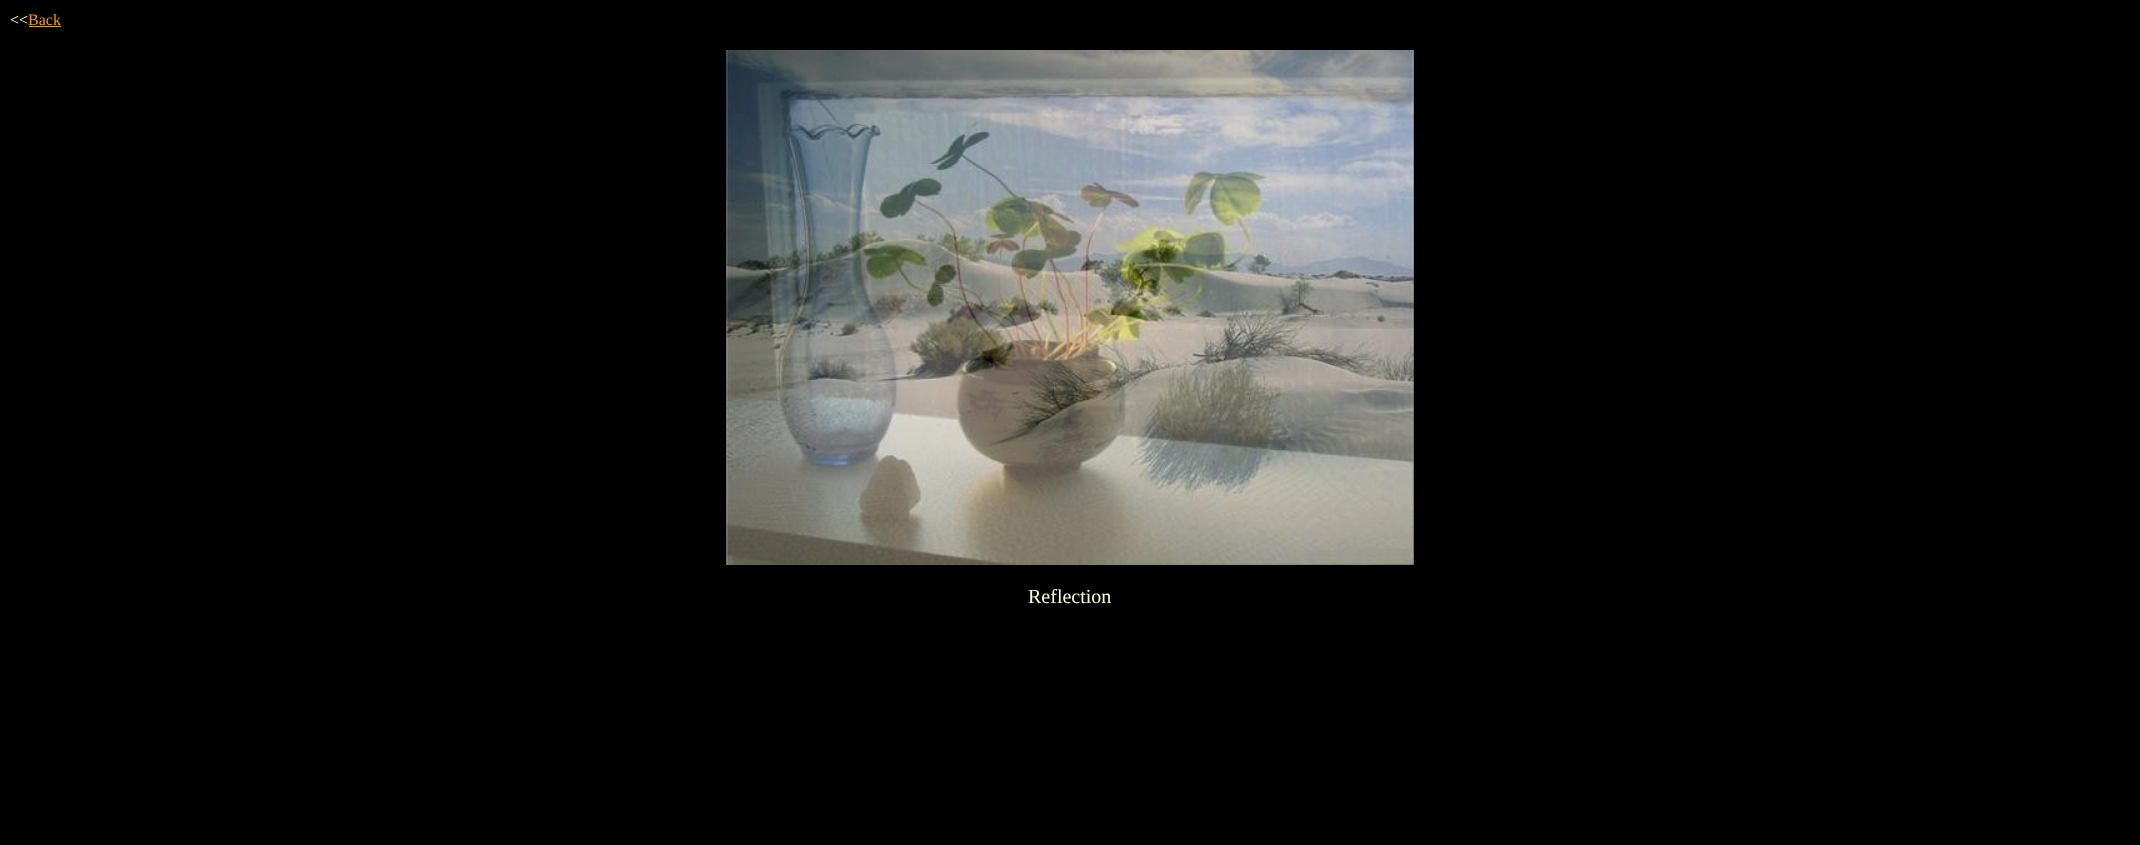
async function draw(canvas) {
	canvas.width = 2140;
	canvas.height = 845;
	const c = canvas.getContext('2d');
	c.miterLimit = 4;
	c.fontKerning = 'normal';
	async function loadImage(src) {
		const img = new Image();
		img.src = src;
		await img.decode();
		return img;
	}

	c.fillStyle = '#000';
	c.fillRect(0, 0, 2140, 845);
	c.font = '16px Liberation Serif';
	c.fillStyle = '#ffc';
	c.fillText('<<', 10, 25);
	c.fillStyle = '#f90';
	c.fillText('Back', 28, 25);
	c.fillRect(29, 26, 32, 1);
	c.drawImage(await loadImage('img1.png'), 726, 50, 688, 515);
	c.font = '20px Liberation Serif';
	c.fillStyle = '#ffc';
	c.fillText('Reflection', 1028, 603);
}

draw(document.querySelector('canvas'));
